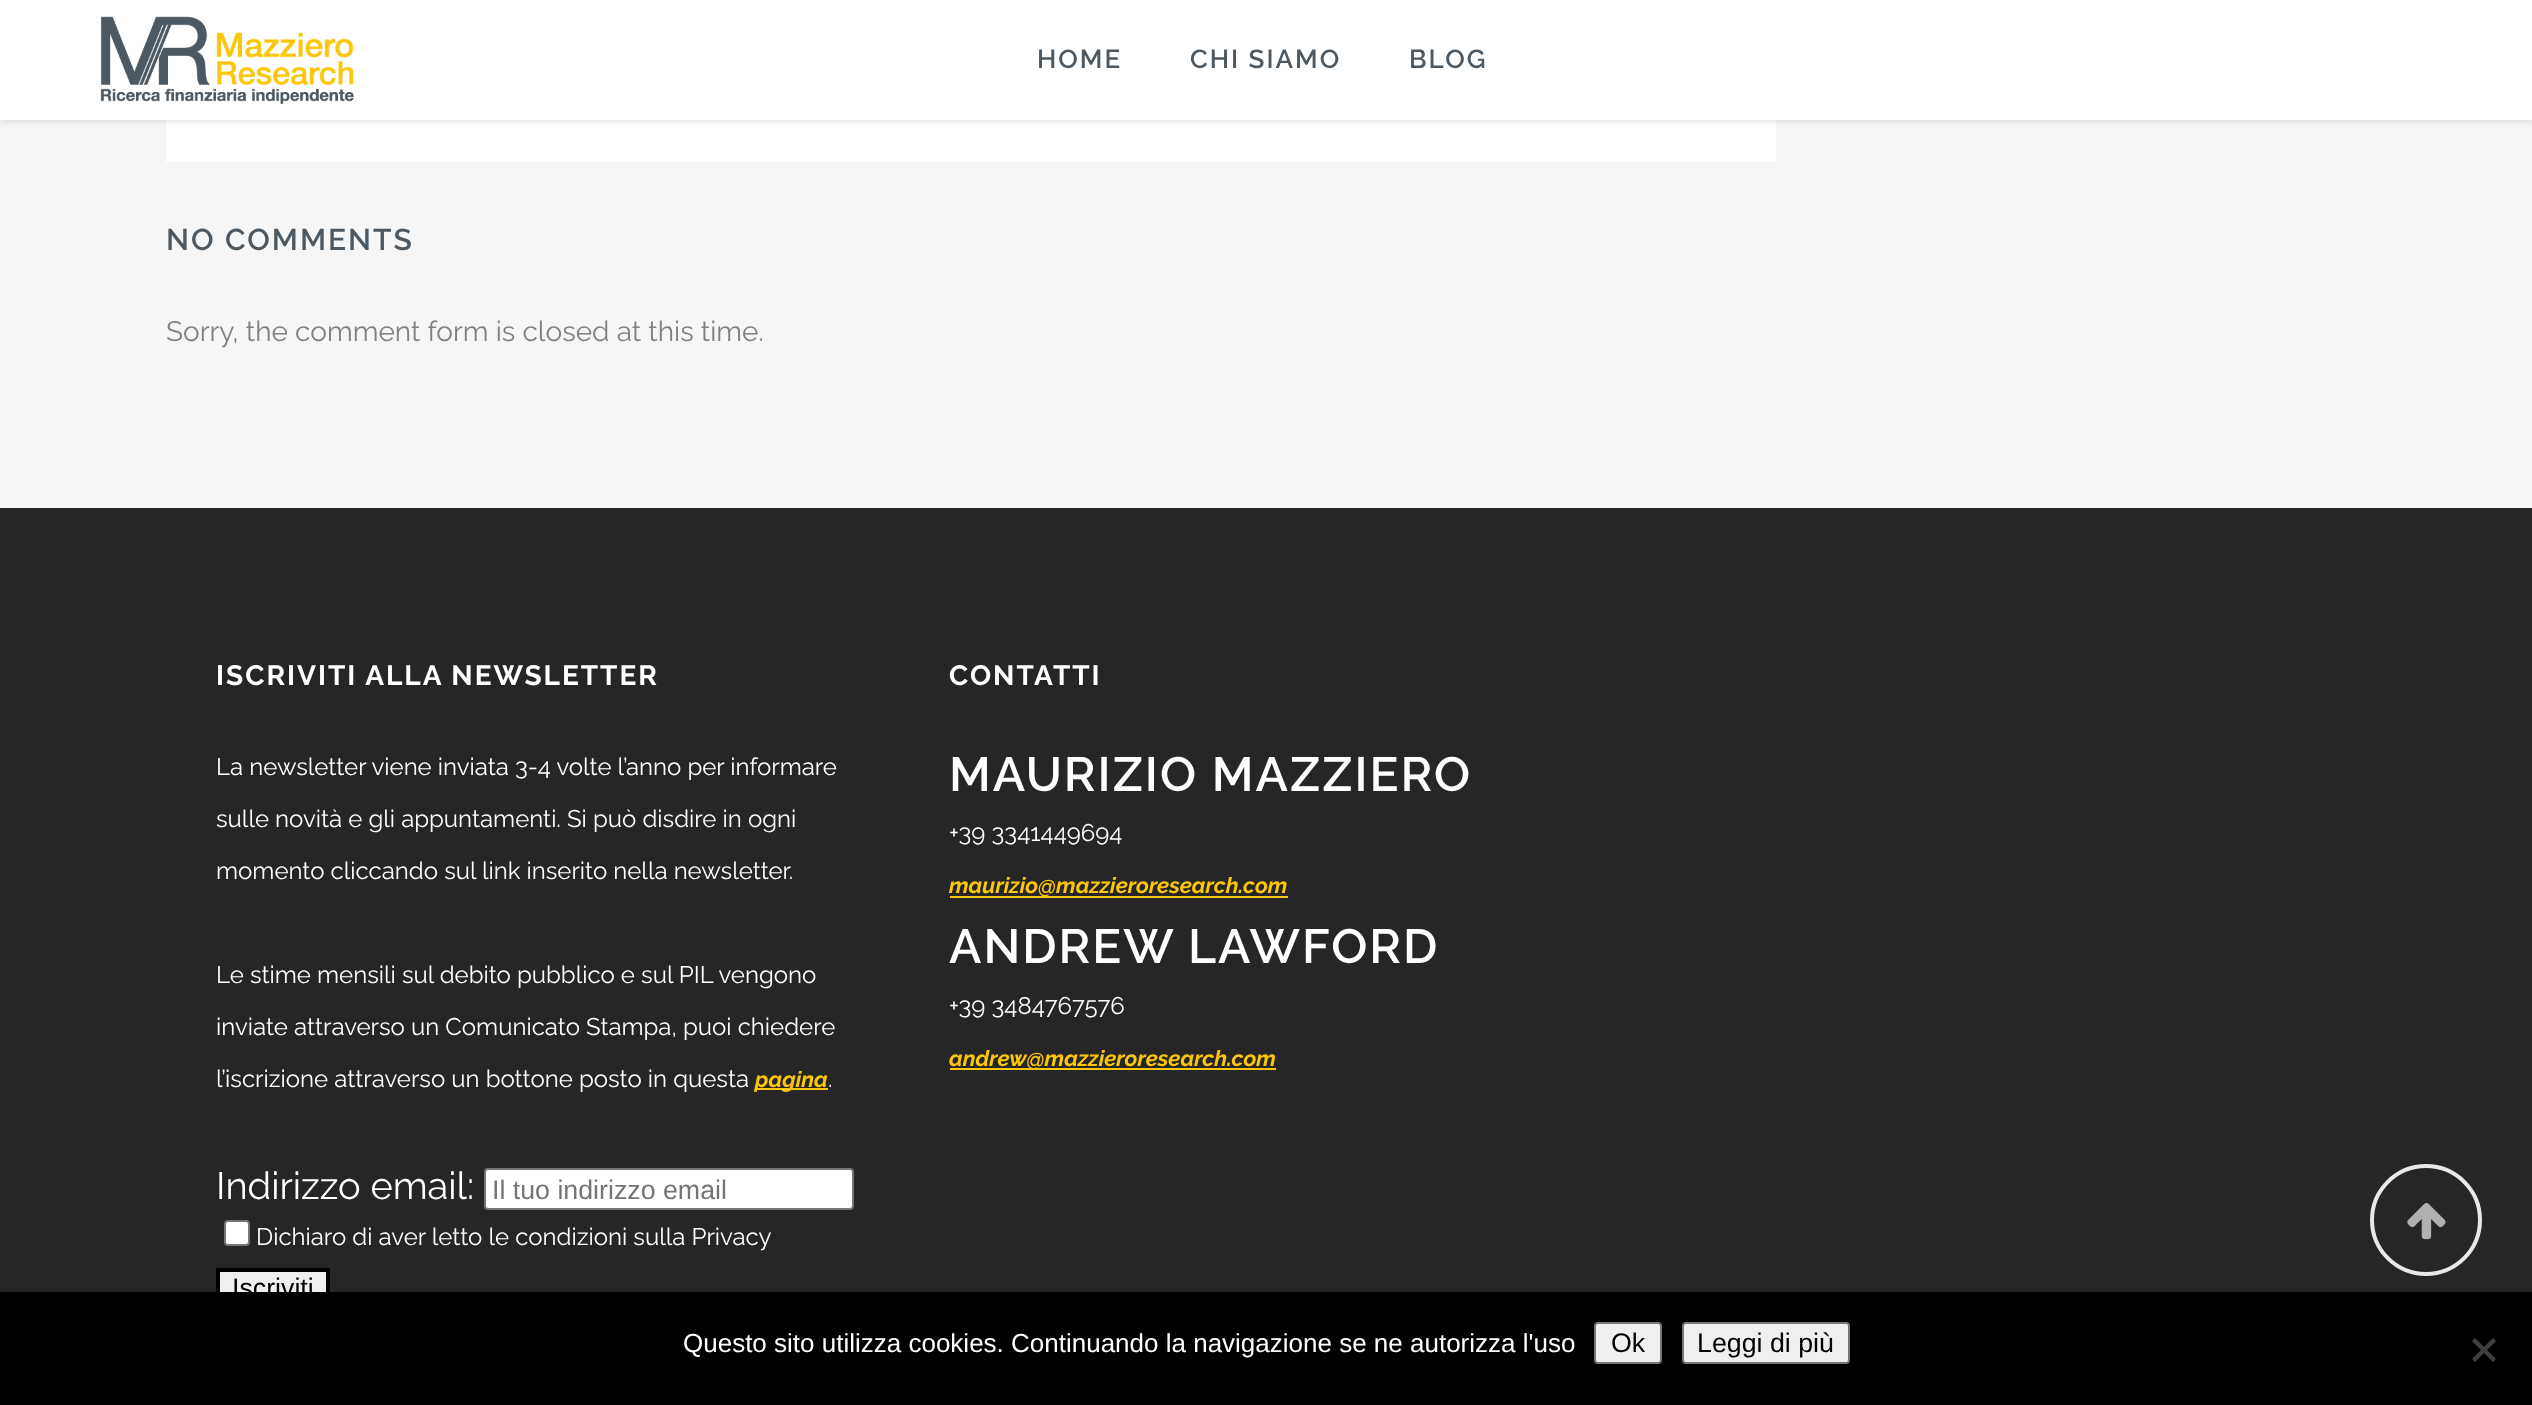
async function draw(canvas) {
	canvas.width = 2532;
	canvas.height = 1405;
	const c = canvas.getContext('2d');
	c.miterLimit = 4;
	c.fontKerning = 'normal';
	async function loadImage(src) {
		const img = new Image();
		img.src = src;
		await img.decode();
		return img;
	}

	c.fillStyle = '#f6f6f6';
	c.fillRect(0, 0, 2532, 1405);
	c.fillStyle = '#fff';
	c.fillRect(166, 120, 1610, 42);
	c.fillStyle = '#0000001c';
	c.filter = 'blur(3px)';
	c.beginPath();
	c.rect(0, 2, 2532, 120);
	c.fill();
	c.filter = 'none';
	c.fillStyle = '#fff';
	c.fillRect(0, 0, 2532, 120);
	c.drawImage(await loadImage('img1.png'), 100, 16, 254, 88);
	c.letterSpacing = '2px';
	c.font = '600 26px Raleway';
	c.fillStyle = '#4d5962';
	for (const [text, x, y] of [
		['HOME', 1037, 68],
		['CHI SIAMO', 1190, 68],
		['BLOG', 1409, 68],
	]) {
		c.fillText(text, x, y);
	}
	c.font = '600 30px Raleway';
	c.fillText('NO COMMENTS', 166, 250);
	c.letterSpacing = '0px';
	c.font = '28px Raleway';
	c.fillStyle = '#818181';
	c.fillText('Sorry, the comment form is closed at this time.', 166, 341);
	c.fillStyle = '#262626';
	c.fillRect(0, 508, 2532, 784);
	c.letterSpacing = '2px';
	c.font = 'bold 28px Raleway';
	c.fillStyle = '#fff';
	c.fillText('ISCRIVITI ALLA NEWSLETTER', 216, 685);
	c.letterSpacing = '0px';
	c.font = '24px Raleway';
	for (const [text, x, y] of [
		['La newsletter viene inviata 3-4 volte l’anno per informare', 216, 775],
		['sulle novità e gli appuntamenti. Si può disdire in ogni', 216, 827],
		['momento cliccando sul link inserito nella newsletter.', 216, 879],
		['Le stime mensili sul debito pubblico e sul PIL vengono', 216, 983],
		['inviate attraverso un Comunicato Stampa, puoi chiedere', 216, 1035],
		['l’iscrizione attraverso un bottone posto in questa', 216, 1087],
	]) {
		c.fillText(text, x, y);
	}
	c.fillStyle = '#fcc60b';
	c.fillRect(756, 1088, 72, 2);
	c.font = 'italic bold 22px Raleway';
	c.fillText('pagina', 755, 1087);
	c.font = '24px Raleway';
	c.fillStyle = '#fff';
	c.fillText('.', 828, 1087);
	c.font = '38px Raleway';
	c.fillText('Indirizzo email:', 216, 1199);
	c.beginPath();
	c.roundRect(485, 1169, 368, 40, 3);
	c.fill();
	c.strokeStyle = '#767676';
	c.lineWidth = 2;
	c.stroke();
	c.font = '26.75px Liberation Sans';
	c.fillStyle = '#757575';
	c.fillText('Il tuo indirizzo email', 492, 1199);
	c.fillStyle = '#fff';
	c.beginPath();
	c.roundRect(225, 1221, 24, 24, 3);
	c.fill();
	c.stroke();
	c.font = '24px Raleway';
	c.fillText('Dichiaro di aver letto le condizioni sulla Privacy', 256, 1245);
	c.fillStyle = '#efefef';
	c.fillRect(220, 1272, 106, 20);
	c.strokeStyle = '#000';
	c.lineWidth = 4;
	c.strokeRect(218, 1270, 110, 38);
	c.font = '26.75px Liberation Sans';
	c.fillStyle = '#000';
	c.fillText('Iscriviti', 232, 1297);
	c.letterSpacing = '2px';
	c.font = 'bold 28px Raleway';
	c.fillStyle = '#fff';
	c.fillText('CONTATTI', 949, 685);
	c.font = '600 48px Raleway';
	c.fillText('MAURIZIO MAZZIERO', 949, 791);
	c.letterSpacing = '0px';
	c.font = '24px Raleway';
	c.fillText('+39 3341449694', 949, 841);
	c.fillStyle = '#fcc60b';
	c.fillRect(950, 896, 338, 2);
	c.font = 'italic bold 22px Raleway';
	c.fillText('maurizio@mazzieroresearch.com', 949, 893);
	c.letterSpacing = '2px';
	c.font = '600 48px Raleway';
	c.fillStyle = '#fff';
	c.fillText('ANDREW LAWFORD', 949, 963);
	c.letterSpacing = '0px';
	c.font = '24px Raleway';
	c.fillText('+39 3484767576', 949, 1014);
	c.fillStyle = '#fcc60b';
	c.fillRect(950, 1068, 326, 2);
	c.font = 'italic bold 22px Raleway';
	c.fillText('andrew@mazzieroresearch.com', 949, 1066);
	c.beginPath();
	c.arc(2426, 1220, 54, 0, 2 * Math.PI);
	c.strokeStyle = '#e8e8e8';
	c.stroke();
	c.drawImage(await loadImage('img2.png'), 2407, 1203, 39, 37);
	c.fillStyle = '#000';
	c.fillRect(0, 1292, 2532, 113);
	c.font = '26px Liberation Sans';
	c.fillStyle = '#fff';
	c.fillText('Questo sito utilizza cookies. Continuando la navigazione se ne autorizza l\'uso', 683, 1352);
	c.fillStyle = '#efefef';
	c.beginPath();
	c.roundRect(1595, 1323, 66, 40, 3);
	c.fill();
	c.strokeStyle = '#767676';
	c.lineWidth = 2;
	c.stroke();
	c.font = '26.75px Liberation Sans';
	c.fillStyle = '#000';
	c.fillText('Ok', 1611, 1352);
	c.fillStyle = '#efefef';
	c.beginPath();
	c.roundRect(1683, 1323, 166, 40, 3);
	c.fill();
	c.stroke();
	c.fillStyle = '#000';
	c.fillText('Leggi di più', 1697, 1352);
	c.fillStyle = '#404040';
	c.beginPath();
	c.moveTo(2493, 1338);
	c.lineTo(2496, 1341);
	c.lineTo(2475, 1362);
	c.lineTo(2472, 1359);
	c.closePath();
	c.fill();
	c.beginPath();
	c.moveTo(2472, 1341);
	c.lineTo(2475, 1338);
	c.lineTo(2496, 1359);
	c.lineTo(2493, 1362);
	c.closePath();
	c.fill();
}

draw(document.querySelector('canvas'));
